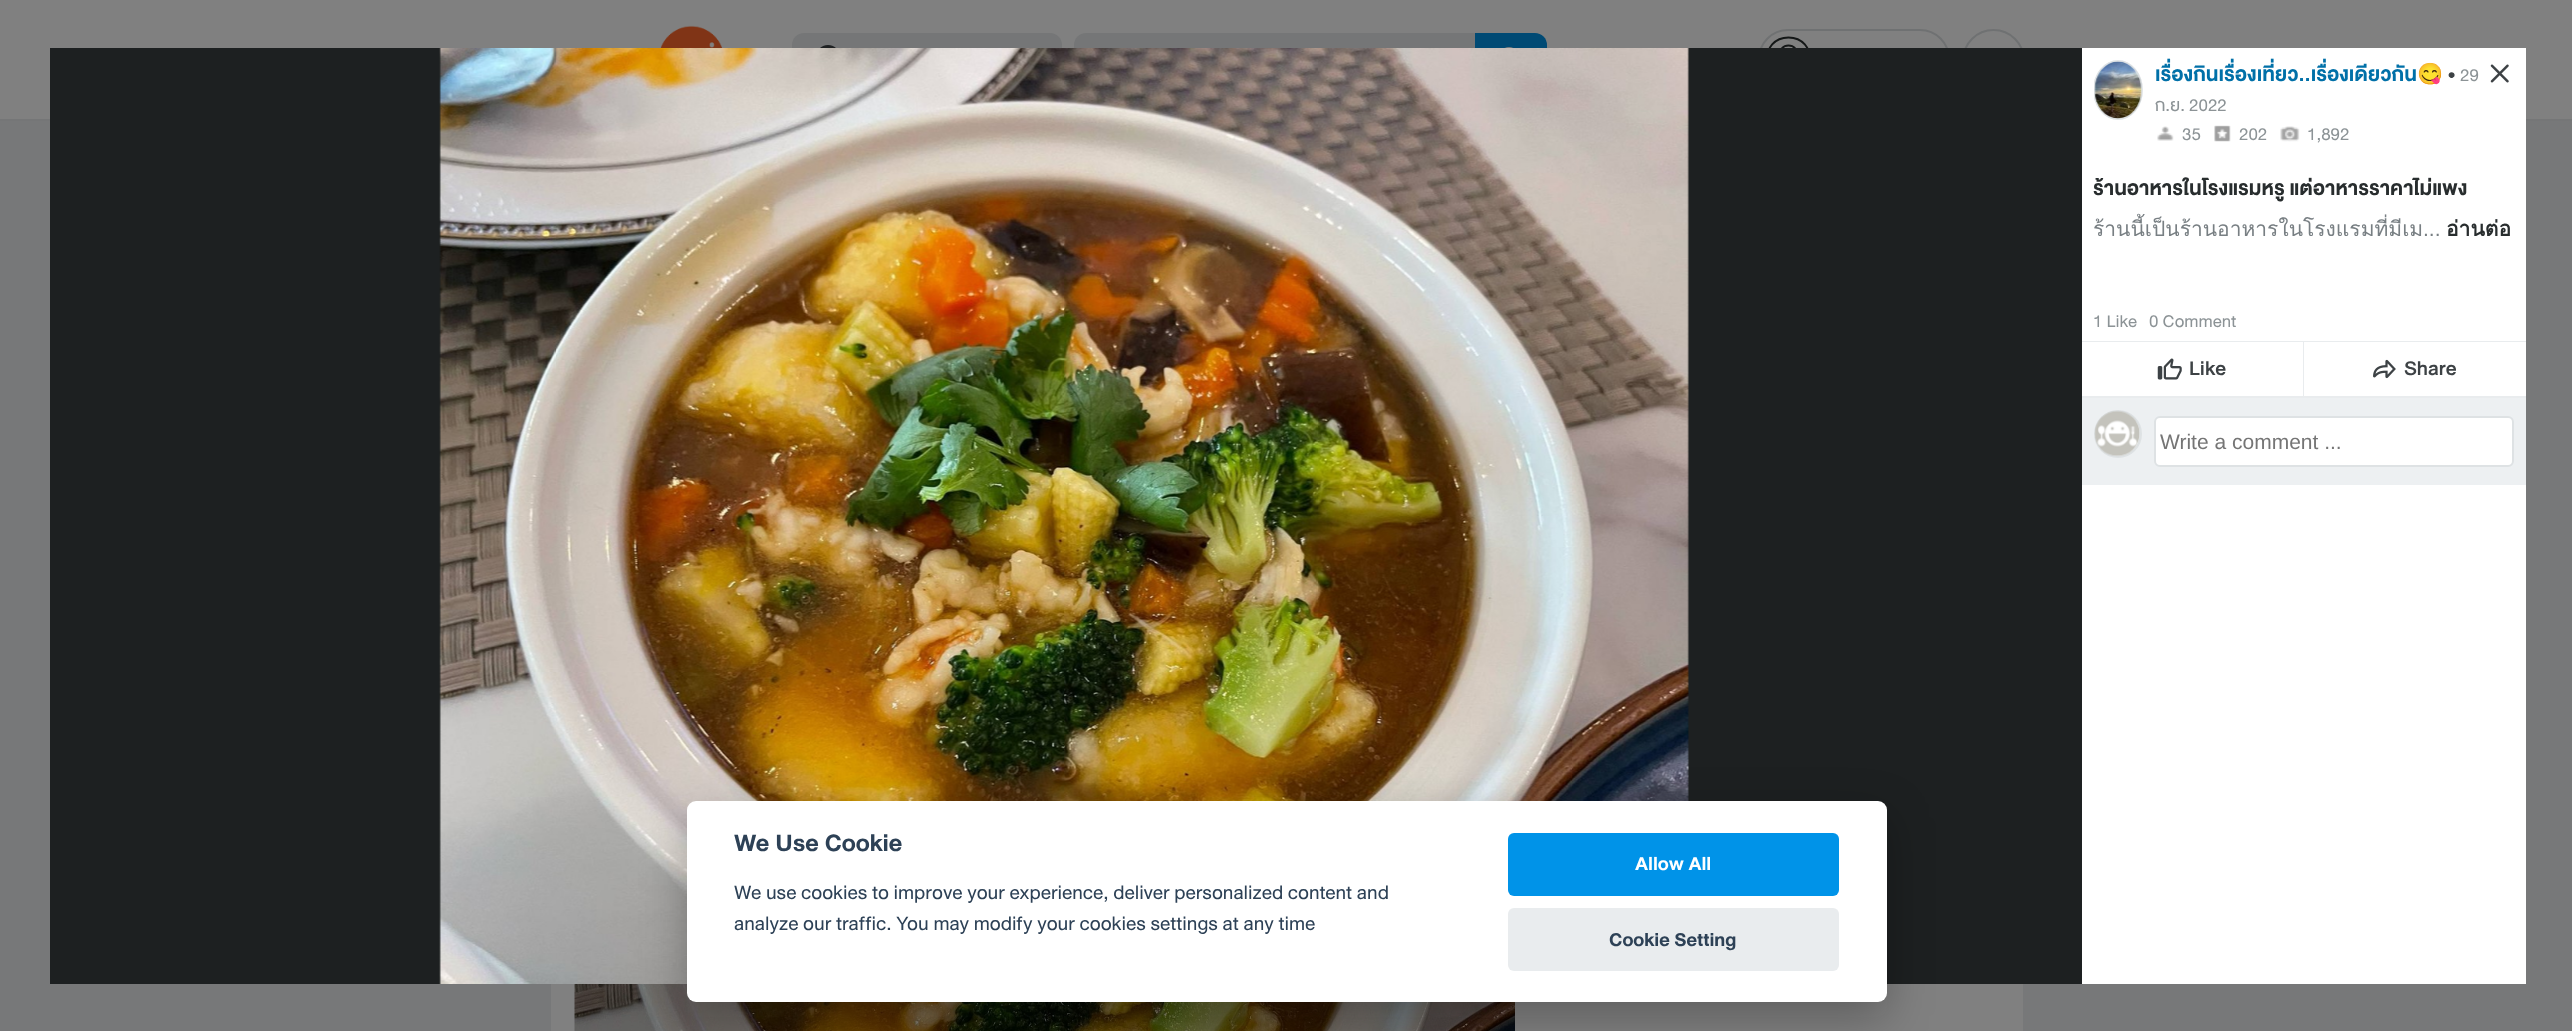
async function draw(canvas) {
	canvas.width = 2572;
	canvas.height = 1031;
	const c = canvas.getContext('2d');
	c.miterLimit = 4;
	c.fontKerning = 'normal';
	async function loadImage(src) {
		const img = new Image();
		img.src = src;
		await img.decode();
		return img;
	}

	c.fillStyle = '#808080';
	c.fillRect(0, 0, 2572, 1031);
	c.fillStyle = '#757677';
	c.fillRect(0, 119, 2572, 2);
	c.drawImage(await loadImage('img1.png'), 660, 25, 63, 23);
	c.beginPath();
	c.roundRect(792, 33, 270, 54, 12);
	c.fill();
	c.drawImage(await loadImage('img2.png'), 820, 45, 16, 3);
	c.beginPath();
	c.roundRect(1074, 33, 401, 54, [12, 0, 0, 12]);
	c.fill();
	c.fillStyle = '#004a74';
	c.beginPath();
	c.roundRect(1475, 33, 72, 54, [0, 12, 12, 0]);
	c.fill();
	c.drawImage(await loadImage('img3.png'), 1504, 47, 10, 1);
	c.beginPath();
	c.roundRect(1759, 30, 190, 61, 29);
	c.strokeStyle = '#6f7172';
	c.lineWidth = 2;
	c.stroke();
	c.beginPath();
	c.moveTo(1788.5, 82);
	c.bezierCurveTo(1817.5, 82, 1817.5, 37.5, 1788.5, 37.5);
	c.bezierCurveTo(1759.5, 37.5, 1759.5, 82, 1788.5, 82);
	c.closePath();
	c.moveTo(1788.5, 62.5);
	c.bezierCurveTo(1800, 62.5, 1800, 45.5, 1788.5, 45.5);
	c.bezierCurveTo(1777, 45.5, 1777, 62.5, 1788.5, 62.5);
	c.closePath();
	c.strokeStyle = '#141717';
	c.lineWidth = 1.9;
	c.stroke();
	c.beginPath();
	c.arc(1993.5, 60.5, 30.5, 0, 2 * Math.PI);
	c.strokeStyle = '#6f7172';
	c.lineWidth = 2;
	c.stroke();
	c.fillStyle = '#777879';
	c.fillRect(0, 121, 2572, 910);
	c.fillStyle = '#808080';
	c.fillRect(551, 984, 1472, 47);
	c.drawImage(await loadImage('img4.png'), 574, 984, 941, 47);
	c.fillStyle = '#fff';
	c.fillRect(2082, 48, 444, 936);
	c.fillStyle = '#1d2021';
	c.fillRect(50, 48, 2032, 936);
	c.drawImage(await loadImage('img5.png'), 439, 48, 1250, 936);
	c.save();
	c.beginPath();
	c.rect(2094, 60, 50, 60);
	c.clip();
	c.fillStyle = '#edf0f2';
	c.beginPath();
	c.ellipse(2118, 90, 25, 30, 0, 0, 2 * Math.PI);
	c.fill();
	c.beginPath();
	c.moveTo(2118, 61);
	c.bezierCurveTo(2131.5, 61, 2142, 74, 2142, 90);
	c.bezierCurveTo(2142, 106, 2131.5, 119, 2118, 119);
	c.bezierCurveTo(2104.5, 119, 2094, 106, 2094, 90);
	c.bezierCurveTo(2094, 74, 2104.5, 61, 2118, 61);
	c.closePath();
	c.strokeStyle = '#dee2e4';
	c.lineWidth = 1.5;
	c.stroke();
	c.restore();
	c.drawImage(await loadImage('img6.png'), 2094, 61, 48, 58);
	c.font = 'bold 21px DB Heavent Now';
	c.fillStyle = '#0070a8';
	c.fillText('เรื่องกินเรื่องเที่ยว..เรื่องเดียวกัน', 2155, 81);
	c.font = 'bold 21px Noto Color Emoji';
	c.fillText('😋', 2417, 81);
	c.font = '21px DB Heavent Now';
	c.fillStyle = '#3d4245';
	c.fillText('•', 2448, 81);
	c.font = '18px DB Heavent Now';
	c.fillStyle = '#8c9396';
	c.fillText('29', 2460, 81);
	c.fillText('ก.ย. 2022', 2155, 111);
	c.drawImage(await loadImage('img7.png'), 2157, 126, 17, 15);
	c.fillText('35', 2182, 140);
	c.drawImage(await loadImage('img8.png'), 2214, 125, 17, 17);
	c.fillText('202', 2239, 140);
	c.drawImage(await loadImage('img9.png'), 2280, 126, 20, 16);
	c.fillText('1,892', 2307, 140);
	c.font = 'bold 21px DB Heavent Now';
	c.fillStyle = '#282d2e';
	c.fillText('ร้านอาหารในโรงแรมหรู แต่อาหารราคาไม่แพง', 2093, 195);
	c.font = '21px Loma';
	c.fillStyle = '#787f83';
	c.fillText('ร้านนี้เป็นร้านอาหารในโรงแรมที่มีเม', 2093, 236);
	c.font = '21px Liberation Sans';
	c.fillText('...', 2423, 236);
	c.font = 'bold 21px Loma';
	c.fillStyle = '#282d2e';
	c.fillText('อ่านต่อ', 2446, 236);
	c.font = '18px DB Heavent Now';
	c.fillStyle = '#8c9396';
	c.fillText('1 Like', 2093, 327);
	c.fillText('0 Comment', 2149, 327);
	c.fillStyle = '#e9ecee';
	c.fillRect(2082, 341, 444, 57);
	c.fillStyle = '#fff';
	c.fillRect(2082, 342, 221, 54);
	c.drawImage(await loadImage('img10.png'), 2157, 358, 25, 22);
	c.font = '500 21px DB Heavent Now';
	c.fillStyle = '#3d4245';
	c.fillText('Like', 2189, 375);
	c.fillStyle = '#fff';
	c.fillRect(2304, 342, 222, 54);
	c.drawImage(await loadImage('img11.png'), 2373, 359, 23, 20);
	c.fillStyle = '#3d4245';
	c.fillText('Share', 2404, 375);
	c.fillStyle = '#edf0f2';
	c.fillRect(2082, 398, 444, 87);
	c.beginPath();
	c.arc(2118, 434, 23, 0, 2 * Math.PI);
	c.strokeStyle = '#dee2e4';
	c.stroke();
	c.drawImage(await loadImage('img12.png'), 2094, 410, 46, 47);
	c.fillStyle = '#fff';
	c.beginPath();
	c.roundRect(2155, 417, 358, 49, 5);
	c.fill();
	c.stroke();
	c.font = '21px Liberation Sans';
	c.fillStyle = '#757575';
	c.fillText('Write a comment ...', 2160, 449);
	c.drawImage(await loadImage('img13.png'), 2490, 64, 19, 19);
	c.fillStyle = '#02020347';
	c.filter = 'blur(22.5px)';
	c.beginPath();
	c.roundRect(687, 816, 1200, 201, 9);
	c.fill();
	c.filter = 'none';
	c.fillStyle = '#fff';
	c.beginPath();
	c.roundRect(687, 801, 1200, 201, 9);
	c.fill();
	c.font = 'bold 25.25px DB Heavent Now';
	c.fillStyle = '#2d4156';
	c.fillText('We Use Cookie', 734, 851);
	c.font = '20.4px DB Heavent Now';
	c.fillText('We use cookies to improve your experience, deliver personalized content and', 734, 899);
	c.fillText('analyze our traffic. You may modify your cookies settings at any time', 734, 930);
	c.fillStyle = '#0093e8';
	c.beginPath();
	c.roundRect(1508, 833, 331, 63, 6);
	c.fill();
	c.font = 'bold 19.75px DB Heavent Now';
	c.fillStyle = '#fff';
	c.fillText('Allow All', 1635, 870);
	c.fillStyle = '#e9ecee';
	c.beginPath();
	c.roundRect(1508, 908, 331, 63, 6);
	c.fill();
	c.fillStyle = '#2d4156';
	c.fillText('Cookie Setting', 1609, 946);
}

draw(document.querySelector('canvas'));
